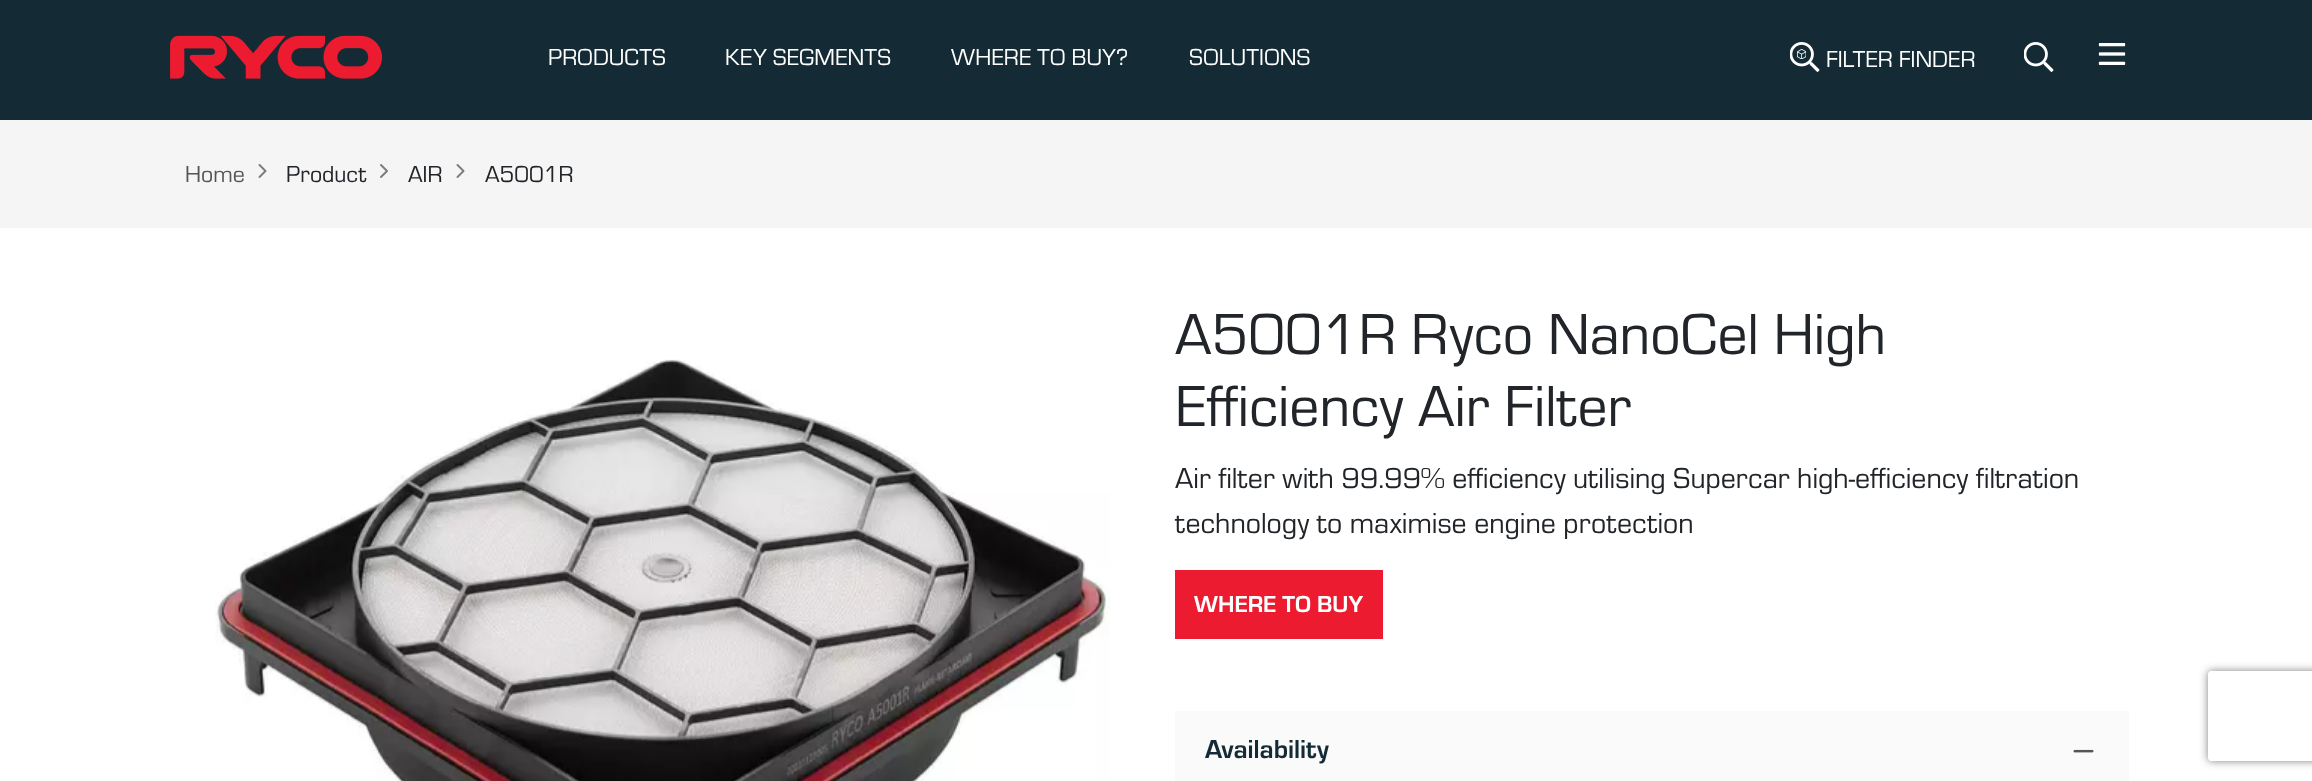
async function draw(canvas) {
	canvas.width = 2312;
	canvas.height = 781;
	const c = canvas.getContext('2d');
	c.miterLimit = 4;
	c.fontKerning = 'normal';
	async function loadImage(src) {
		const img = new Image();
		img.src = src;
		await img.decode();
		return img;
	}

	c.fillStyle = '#fff';
	c.fillRect(0, 0, 2312, 781);
	c.fillStyle = '#142b35';
	c.fillRect(0, 0, 2312, 120);
	c.drawImage(await loadImage('img1.png'), 170, 35, 212, 44);
	c.font = '24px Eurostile';
	c.fillStyle = '#fff';
	for (const [text, x, y] of [
		['PRODUCTS', 548, 65],
		['KEY SEGMENTS', 725, 65],
		['WHERE TO BUY?', 951, 65],
		['SOLUTIONS', 1189, 65],
	]) {
		c.fillText(text, x, y);
	}
	c.drawImage(await loadImage('img2.png'), 1790, 42, 30, 30);
	c.fillText('FILTER FINDER', 1826, 67);
	c.drawImage(await loadImage('img3.png'), 2024, 42, 30, 30);
	c.drawImage(await loadImage('img4.png'), 2098, 43, 28, 22);
	c.fillStyle = '#f5f5f5';
	c.fillRect(0, 120, 2312, 108);
	c.fillStyle = '#555';
	c.fillText('Home', 185, 182);
	c.drawImage(await loadImage('img5.png'), 258, 164, 9, 14);
	c.fillStyle = '#212529';
	c.fillText('Product', 286, 182);
	c.drawImage(await loadImage('img6.png'), 380, 164, 8, 14);
	c.fillText('AIR', 408, 182);
	c.drawImage(await loadImage('img5.png'), 456, 164, 9, 14);
	c.fillText('A5001R', 485, 182);
	c.drawImage(await loadImage('img7.png'), 215, 359, 895, 422);
	c.font = '60px Eurostile';
	c.fillText('A5001R Ryco NanoCel High', 1175, 354);
	c.fillText('Efficiency Air Filter', 1175, 426);
	c.font = '30px Eurostile';
	c.fillText('Air filter with 99.99% efficiency utilising Supercar high-efficiency filtration', 1175, 488);
	c.fillText('technology to maximise engine protection', 1175, 533);
	c.fillStyle = '#ed1b2f';
	c.fillRect(1175, 570, 208, 69);
	c.font = 'bold 24px Eurostile';
	c.fillStyle = '#fff';
	c.fillText('WHERE TO BUY', 1194, 612);
	c.fillStyle = '#fafafa';
	c.fillRect(1175, 711, 954, 70);
	c.font = 'bold 27px Eurostile';
	c.fillStyle = '#142b35';
	c.fillText('Availability', 1205, 758);
	c.drawImage(await loadImage('img8.png'), 2073, 749, 21, 4);
	c.save();
	c.beginPath();
	c.moveTo(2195, 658);
	c.lineTo(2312, 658);
	c.lineTo(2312, 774);
	c.lineTo(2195, 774);
	c.closePath();
	c.moveTo(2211, 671);
	c.lineTo(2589, 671);
	c.bezierCurveTo(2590.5, 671, 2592, 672.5, 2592, 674);
	c.lineTo(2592, 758);
	c.bezierCurveTo(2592, 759.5, 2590.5, 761, 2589, 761);
	c.lineTo(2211, 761);
	c.bezierCurveTo(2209.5, 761, 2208, 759.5, 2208, 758);
	c.lineTo(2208, 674);
	c.bezierCurveTo(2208, 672.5, 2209.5, 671, 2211, 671);
	c.closePath();
	c.clip('evenodd');
	c.fillStyle = '#808080';
	c.filter = 'blur(4px)';
	c.beginPath();
	c.roundRect(2208, 671, 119, 90, 3);
	c.fill();
	c.filter = 'none';
	c.restore();
}

draw(document.querySelector('canvas'));
